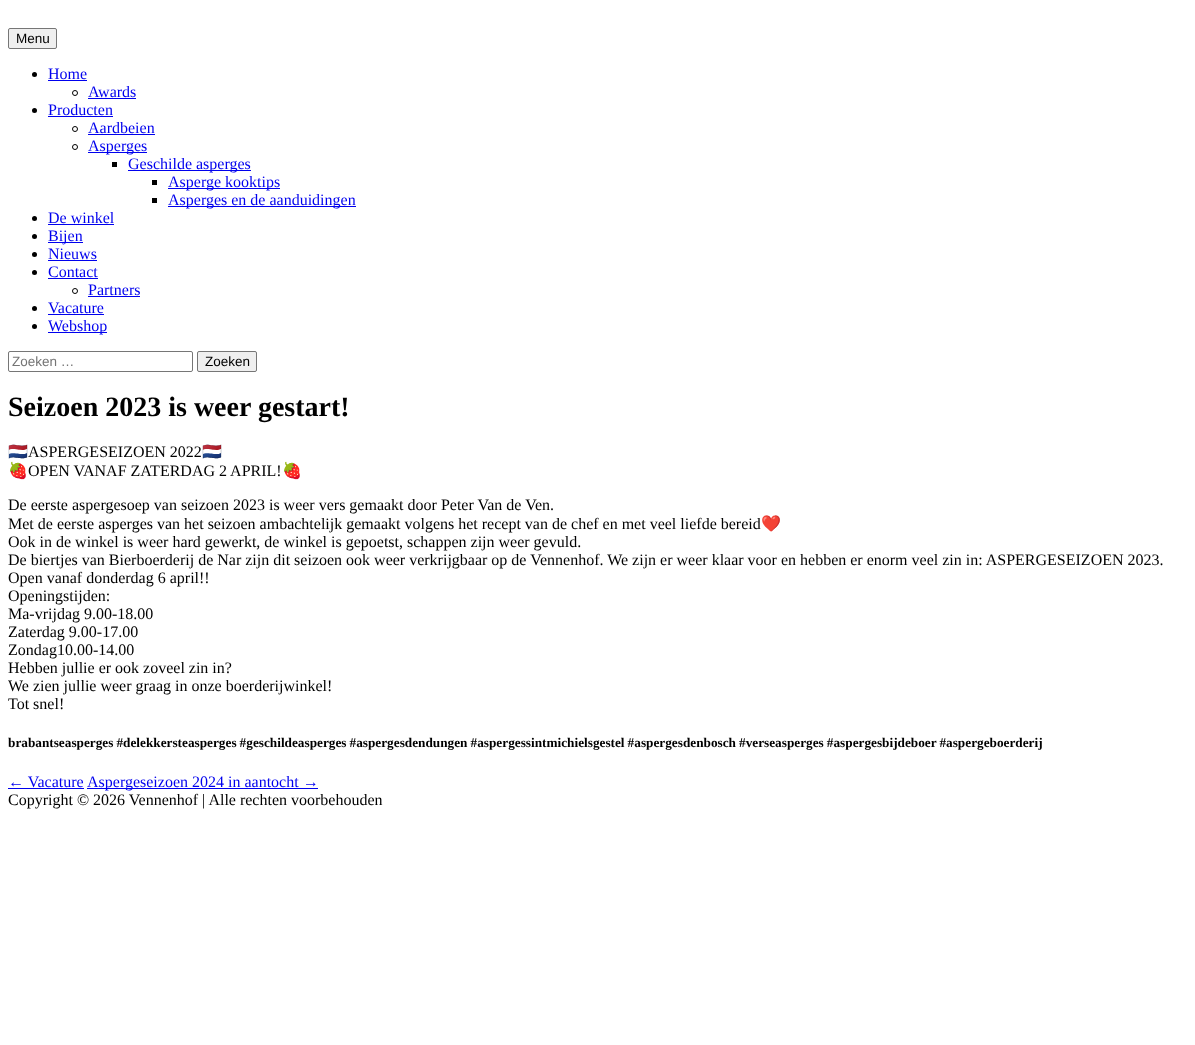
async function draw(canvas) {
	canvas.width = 1195;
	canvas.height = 1045;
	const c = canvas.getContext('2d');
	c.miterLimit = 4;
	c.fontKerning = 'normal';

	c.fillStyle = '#fff';
	c.fillRect(0, 0, 1195, 1045);
	c.fillStyle = '#efefef';
	c.beginPath();
	c.roundRect(8.5, 28.5, 48, 20, 1.5);
	c.fill();
	c.strokeStyle = '#767676';
	c.stroke();
	c.font = '13.5px Liberation Sans';
	c.fillStyle = '#000';
	c.fillText('Menu', 16, 43);
	c.beginPath();
	c.arc(34.5, 74.5, 2.5, 0, 2 * Math.PI);
	c.fill();
	c.font = '16px Liberation Serif';
	c.fillStyle = '#00e';
	c.fillText('Home', 48, 79);
	c.fillRect(48, 80, 39, 1);
	c.beginPath();
	c.arc(75, 93, 2.5, 0, 2 * Math.PI);
	c.strokeStyle = '#000';
	c.stroke();
	c.fillText('Awards', 88, 97);
	c.fillRect(88, 98, 48, 1);
	c.fillStyle = '#000';
	c.beginPath();
	c.arc(34.5, 110.5, 2.5, 0, 2 * Math.PI);
	c.fill();
	c.fillStyle = '#00e';
	c.fillText('Producten', 48, 115);
	c.fillRect(48, 116, 65, 1);
	c.beginPath();
	c.arc(75, 129, 2.5, 0, 2 * Math.PI);
	c.stroke();
	c.fillText('Aardbeien', 88, 133);
	c.fillRect(88, 134, 67, 1);
	c.beginPath();
	c.arc(75, 147, 2.5, 0, 2 * Math.PI);
	c.stroke();
	c.fillRect(88, 152, 59, 1);
	c.fillText('Asperges', 88, 151);
	c.fillStyle = '#000';
	c.fillRect(112, 162, 5, 5);
	c.fillStyle = '#00e';
	c.fillRect(128, 170, 123, 1);
	c.fillText('Geschilde asperges', 128, 169);
	c.fillStyle = '#000';
	c.fillRect(152, 180, 5, 5);
	c.fillStyle = '#00e';
	c.fillRect(168, 188, 112, 1);
	c.fillText('Asperge kooktips', 168, 187);
	c.fillStyle = '#000';
	c.fillRect(152, 198, 5, 5);
	c.fillStyle = '#00e';
	c.fillRect(168, 206, 188, 1);
	c.fillText('Asperges en de aanduidingen', 168, 205);
	c.fillStyle = '#000';
	c.beginPath();
	c.arc(34.5, 218.5, 2.5, 0, 2 * Math.PI);
	c.fill();
	c.fillStyle = '#00e';
	c.fillText('De winkel', 48, 223);
	c.fillRect(48, 224, 66, 1);
	c.fillStyle = '#000';
	c.beginPath();
	c.arc(34.5, 236.5, 2.5, 0, 2 * Math.PI);
	c.fill();
	c.fillStyle = '#00e';
	c.fillRect(48, 242, 35, 1);
	c.fillText('Bijen', 48, 241);
	c.fillStyle = '#000';
	c.beginPath();
	c.arc(34.5, 254.5, 2.5, 0, 2 * Math.PI);
	c.fill();
	c.fillStyle = '#00e';
	c.fillText('Nieuws', 48, 259);
	c.fillRect(48, 260, 49, 1);
	c.fillStyle = '#000';
	c.beginPath();
	c.arc(34.5, 272.5, 2.5, 0, 2 * Math.PI);
	c.fill();
	c.fillStyle = '#00e';
	c.fillText('Contact', 48, 277);
	c.fillRect(48, 278, 50, 1);
	c.beginPath();
	c.arc(75, 291, 2.5, 0, 2 * Math.PI);
	c.stroke();
	c.fillText('Partners', 88, 295);
	c.fillRect(88, 296, 52, 1);
	c.fillStyle = '#000';
	c.beginPath();
	c.arc(34.5, 308.5, 2.5, 0, 2 * Math.PI);
	c.fill();
	c.fillStyle = '#00e';
	c.fillText('Vacature', 48, 313);
	c.fillRect(48, 314, 56, 1);
	c.fillStyle = '#000';
	c.beginPath();
	c.arc(34.5, 326.5, 2.5, 0, 2 * Math.PI);
	c.fill();
	c.fillStyle = '#00e';
	c.fillRect(48, 332, 59, 1);
	c.fillText('Webshop', 48, 331);
	c.beginPath();
	c.roundRect(8.5, 351.5, 184, 20, 1.5);
	c.strokeStyle = '#767676';
	c.stroke();
	c.font = '13.5px Liberation Sans';
	c.fillStyle = '#757575';
	c.fillText('Zoeken …', 12, 366);
	c.fillStyle = '#efefef';
	c.beginPath();
	c.roundRect(197.5, 351.5, 59, 20, 1.5);
	c.fill();
	c.stroke();
	c.fillStyle = '#000';
	c.fillText('Zoeken', 205, 366);
	c.font = 'bold 28px Liberation Serif';
	c.fillText('Seizoen 2023 is weer gestart!', 8, 416);
	c.font = '16px Noto Color Emoji';
	c.fillText('🇳🇱', 8, 457);
	c.font = '16px Liberation Serif';
	c.fillText('ASPERGESEIZOEN 2022', 28, 457);
	c.font = '16px Noto Color Emoji';
	c.fillText('🇳🇱', 202, 457);
	c.fillText('🍓', 8, 476);
	c.font = '16px Liberation Serif';
	c.fillText('OPEN VANAF ZATERDAG 2 APRIL!', 28, 476);
	c.font = '16px Noto Color Emoji';
	c.fillText('🍓', 282, 476);
	c.font = '16px Liberation Serif';
	c.fillText('De eerste aspergesoep van seizoen 2023 is weer vers gemaakt door Peter Van de Ven.', 8, 510);
	c.fillText('Met de eerste asperges van het seizoen ambachtelijk gemaakt volgens het recept van de chef en met veel liefde bereid', 8, 529);
	c.font = '16px Noto Color Emoji';
	c.fillText('❤️', 761, 529);
	c.font = '16px Liberation Serif';
	for (const [text, x, y] of [
		['Ook in de winkel is weer hard gewerkt, de winkel is gepoetst, schappen zijn weer gevuld.', 8, 547],
		['De biertjes van Bierboerderij de Nar zijn dit seizoen ook weer verkrijgbaar op de Vennenhof. We zijn er weer klaar voor en hebben er enorm veel zin in: ASPERGESEIZOEN 2023.', 8, 565],
		['Open vanaf donderdag 6 april!!', 8, 583],
		['Openingstijden:', 8, 601],
		['Ma-vrijdag 9.00-18.00', 8, 619],
		['Zaterdag 9.00-17.00', 8, 637],
		['Zondag10.00-14.00', 8, 655],
		['Hebben jullie er ook zoveel zin in?', 8, 673],
		['We zien jullie weer graag in onze boerderijwinkel!', 8, 691],
		['Tot snel!', 8, 709],
	]) {
		c.fillText(text, x, y);
	}
	c.wordSpacing = '-0.25px';
	c.font = 'bold 13.28px Liberation Serif';
	c.fillText('brabantseasperges #delekkersteasperges #geschildeasperges #aspergesdendungen #aspergessintmichielsgestel #aspergesdenbosch #verseasperges #aspergesbijdeboer #aspergeboerderij', 8, 747);
	c.wordSpacing = '0px';
	c.font = '16px Liberation Serif';
	c.fillStyle = '#00e';
	c.fillText('← Vacature', 8, 787);
	c.fillRect(8, 788, 76, 1);
	c.fillRect(87, 788, 231, 1);
	c.fillText('Aspergeseizoen 2024 in aantocht →', 87, 787);
	c.fillStyle = '#000';
	c.fillText('Copyright © 2026 Vennenhof | Alle rechten voorbehouden', 8, 805);
}

draw(document.querySelector('canvas'));
